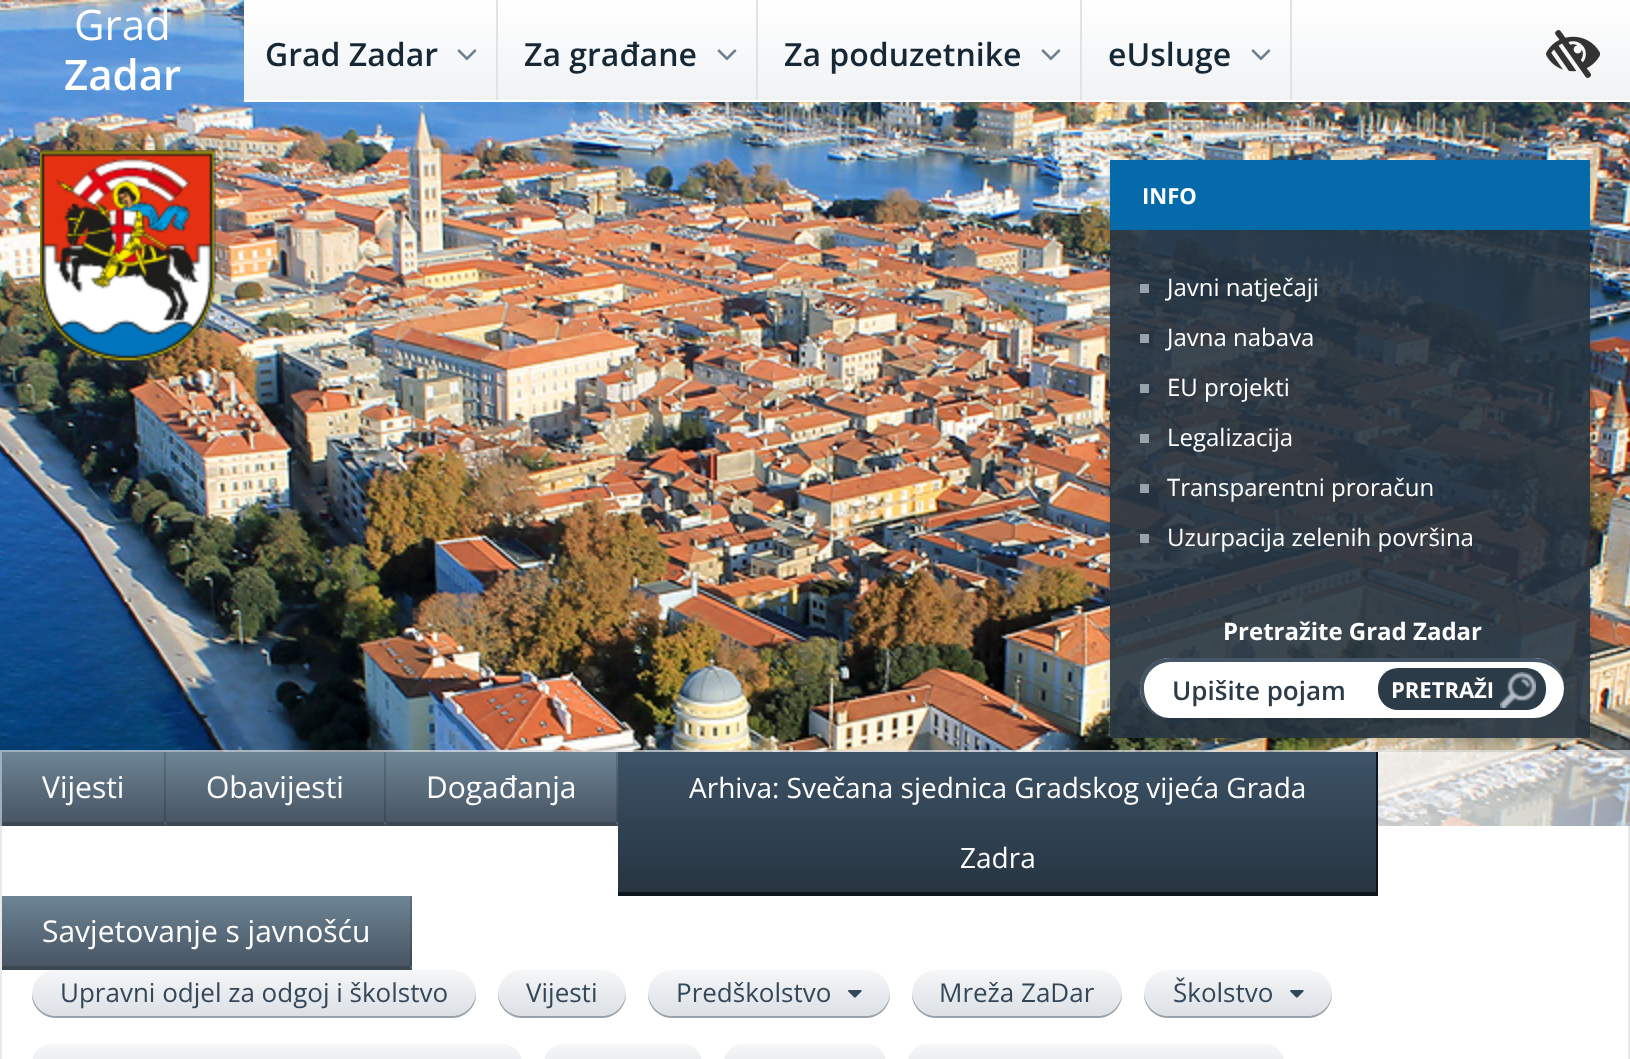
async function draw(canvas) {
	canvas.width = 1630;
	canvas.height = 1059;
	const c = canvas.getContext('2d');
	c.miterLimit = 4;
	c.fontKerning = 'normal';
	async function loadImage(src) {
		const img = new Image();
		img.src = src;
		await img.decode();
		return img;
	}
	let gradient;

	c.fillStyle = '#fff';
	c.fillRect(0, 0, 1630, 1059);
	c.drawImage(await loadImage('img1.png'), 0, 0, 1630, 826);
	c.font = '42px Open Sans';
	c.fillText('Grad', 74, 40);
	c.font = '600 42px Open Sans';
	c.fillText('Zadar', 64, 90);
	gradient = c.createLinearGradient(937, 0, 937, 100);
	gradient.addColorStop(0, '#fff');
	gradient.addColorStop(1, '#f0f2f4');
	c.fillStyle = gradient;
	c.fillRect(244, 0, 1386, 100);
	gradient = c.createLinearGradient(937, 100, 937, 200);
	gradient.addColorStop(0, '#fff');
	gradient.addColorStop(1, '#f0f2f4');
	c.fillStyle = gradient;
	c.fillRect(244, 100, 1386, 2);
	c.font = '600 32px Open Sans';
	c.fillStyle = '#162735';
	c.fillText('Grad Zadar', 265, 66);
	c.drawImage(await loadImage('img2.png'), 457, 49, 20, 12);
	c.fillStyle = '#e0e2e4';
	c.fillRect(496, 0, 2, 100);
	c.fillStyle = '#162735';
	c.fillText('Za građane', 524, 66);
	c.drawImage(await loadImage('img2.png'), 717, 49, 20, 12);
	c.fillStyle = '#e0e2e4';
	c.fillRect(756, 0, 2, 100);
	c.fillStyle = '#162735';
	c.fillText('Za poduzetnike', 784, 66);
	c.drawImage(await loadImage('img2.png'), 1041, 49, 20, 12);
	c.fillStyle = '#e0e2e4';
	c.fillRect(1080, 0, 2, 100);
	c.fillStyle = '#162735';
	c.fillText('eUsluge', 1108, 66);
	c.drawImage(await loadImage('img2.png'), 1251, 49, 20, 12);
	c.fillStyle = '#e0e2e4';
	c.fillRect(1290, 0, 2, 100);
	c.drawImage(await loadImage('img3.png'), 1546, 30, 55, 48);
	c.drawImage(await loadImage('img4.png'), 40, 150, 176, 212);
	c.strokeStyle = '#dee0e2b3';
	c.lineWidth = 2;
	c.strokeRect(1, 751, 1628, 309);
	c.save();
	c.beginPath();
	c.moveTo(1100, 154);
	c.lineTo(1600, 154);
	c.lineTo(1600, 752);
	c.lineTo(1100, 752);
	c.closePath();
	c.moveTo(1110, 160);
	c.lineTo(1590, 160);
	c.lineTo(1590, 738);
	c.lineTo(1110, 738);
	c.closePath();
	c.clip('evenodd');
	c.fillStyle = '#00000021';
	c.filter = 'blur(3px)';
	c.beginPath();
	c.rect(1110, 164, 480, 578);
	c.fill();
	c.filter = 'none';
	c.restore();
	c.fillStyle = '#263441e6';
	c.fillRect(1110, 230, 480, 508);
	c.fillStyle = '#056aa9';
	c.fillRect(1110, 160, 480, 70);
	c.font = 'bold 22px Open Sans';
	c.fillStyle = '#fff';
	c.fillText('INFO', 1142, 204);
	c.fillStyle = '#98a2aa';
	c.fillRect(1140, 284, 9, 9);
	c.font = '24px Open Sans';
	c.fillStyle = '#fff';
	c.fillText('Javni natječaji', 1167, 296);
	c.fillStyle = '#98a2aa';
	c.fillRect(1140, 334, 9, 9);
	c.fillStyle = '#fff';
	c.fillText('Javna nabava', 1167, 346);
	c.fillStyle = '#98a2aa';
	c.fillRect(1140, 384, 9, 9);
	c.fillStyle = '#fff';
	c.fillText('EU projekti', 1167, 396);
	c.fillStyle = '#98a2aa';
	c.fillRect(1140, 434, 9, 9);
	c.fillStyle = '#fff';
	c.fillText('Legalizacija', 1167, 446);
	c.fillStyle = '#98a2aa';
	c.fillRect(1140, 484, 9, 9);
	c.fillStyle = '#fff';
	c.fillText('Transparentni proračun', 1167, 496);
	c.fillStyle = '#98a2aa';
	c.fillRect(1140, 534, 9, 9);
	c.fillStyle = '#fff';
	c.fillText('Uzurpacija zelenih površina', 1167, 546);
	c.font = 'bold 24px Open Sans';
	c.fillText('Pretražite Grad Zadar', 1223, 640);
	c.beginPath();
	c.roundRect(1140, 658, 424, 60, 30);
	c.fill();
	c.fillStyle = '#456';
	c.beginPath();
	c.moveTo(1170, 658);
	c.lineTo(1534, 658);
	c.bezierCurveTo(1551, 658, 1564, 671, 1564, 688);
	c.bezierCurveTo(1564, 705, 1551, 718, 1534, 718);
	c.lineTo(1170, 718);
	c.bezierCurveTo(1153, 718, 1140, 705, 1140, 688);
	c.bezierCurveTo(1140, 671, 1153, 658, 1170, 658);
	c.closePath();
	c.moveTo(1170, 662);
	c.lineTo(1534, 662);
	c.bezierCurveTo(1551, 662, 1564, 674, 1564, 688);
	c.bezierCurveTo(1564, 705, 1551, 718, 1534, 718);
	c.lineTo(1170, 718);
	c.bezierCurveTo(1156, 718, 1144, 705, 1144, 688);
	c.bezierCurveTo(1144, 674, 1156, 662, 1170, 662);
	c.closePath();
	c.fill('evenodd');
	c.font = '600 26px Open Sans';
	c.fillStyle = '#2b3b48';
	c.fillText('Upišite pojam', 1172, 700);
	c.beginPath();
	c.roundRect(1378, 668, 168, 42, 20);
	c.fill();
	c.drawImage(await loadImage('img5.png'), 1500, 672, 36, 36);
	c.font = 'bold 22px Open Sans';
	c.fillStyle = '#fff';
	c.fillText('PRETRAŽI', 1391, 698);
	gradient = c.createLinearGradient(83, 752, 83, 822);
	gradient.addColorStop(0, '#6d8595');
	gradient.addColorStop(1, '#485564');
	c.fillStyle = gradient;
	c.fillRect(2, 752, 164, 70);
	gradient = c.createLinearGradient(83, 822, 83, 892);
	gradient.addColorStop(0, '#6d8595');
	gradient.addColorStop(1, '#485564');
	c.fillStyle = gradient;
	c.fillRect(164, 822, 2, 4);
	c.fillStyle = '#00000026';
	c.beginPath();
	c.moveTo(166, 752);
	c.lineTo(166, 826);
	c.lineTo(164, 822);
	c.lineTo(164, 752);
	c.closePath();
	c.fill();
	c.fillStyle = '#3c4752';
	c.beginPath();
	c.moveTo(166, 826);
	c.lineTo(2, 826);
	c.lineTo(2, 822);
	c.lineTo(164, 822);
	c.closePath();
	c.fill();
	c.font = '30px Open Sans';
	c.fillStyle = '#fff';
	c.fillText('Vijesti', 42, 798);
	gradient = c.createLinearGradient(275, 752, 275, 822);
	gradient.addColorStop(0, '#6d8595');
	gradient.addColorStop(1, '#485564');
	c.fillStyle = gradient;
	c.fillRect(166, 752, 220, 70);
	gradient = c.createLinearGradient(275, 822, 275, 892);
	gradient.addColorStop(0, '#6d8595');
	gradient.addColorStop(1, '#485564');
	c.fillStyle = gradient;
	c.fillRect(384, 822, 2, 4);
	c.fillStyle = '#00000026';
	c.beginPath();
	c.moveTo(386, 752);
	c.lineTo(386, 826);
	c.lineTo(384, 822);
	c.lineTo(384, 752);
	c.closePath();
	c.fill();
	c.fillStyle = '#3c4752';
	c.beginPath();
	c.moveTo(386, 826);
	c.lineTo(166, 826);
	c.lineTo(166, 822);
	c.lineTo(384, 822);
	c.closePath();
	c.fill();
	c.fillStyle = '#fff';
	c.fillText('Obavijesti', 206, 798);
	gradient = c.createLinearGradient(501, 752, 501, 822);
	gradient.addColorStop(0, '#6d8595');
	gradient.addColorStop(1, '#485564');
	c.fillStyle = gradient;
	c.fillRect(386, 752, 232, 70);
	gradient = c.createLinearGradient(501, 822, 501, 892);
	gradient.addColorStop(0, '#6d8595');
	gradient.addColorStop(1, '#485564');
	c.fillStyle = gradient;
	c.fillRect(616, 822, 2, 4);
	c.fillStyle = '#00000026';
	c.beginPath();
	c.moveTo(618, 752);
	c.lineTo(618, 826);
	c.lineTo(616, 822);
	c.lineTo(616, 752);
	c.closePath();
	c.fill();
	c.fillStyle = '#3c4752';
	c.beginPath();
	c.moveTo(618, 826);
	c.lineTo(386, 826);
	c.lineTo(386, 822);
	c.lineTo(616, 822);
	c.closePath();
	c.fill();
	c.fillStyle = '#fff';
	c.fillText('Događanja', 426, 798);
	gradient = c.createLinearGradient(997, 752, 997, 892);
	gradient.addColorStop(0, '#3d5367');
	gradient.addColorStop(1, '#263440');
	c.fillStyle = gradient;
	c.fillRect(618, 752, 758, 140);
	c.fillStyle = '#0e151d';
	c.fillRect(1376, 752, 2, 144);
	c.fillRect(618, 892, 760, 4);
	c.font = '28px Open Sans';
	c.fillStyle = '#fff';
	c.fillText('Arhiva: Svečana sjednica Gradskog vijeća Grada', 689, 798);
	c.fillText('Zadra', 960, 868);
	gradient = c.createLinearGradient(206, 896, 206, 966);
	gradient.addColorStop(0, '#6d8595');
	gradient.addColorStop(1, '#485564');
	c.fillStyle = gradient;
	c.fillRect(2, 896, 410, 70);
	gradient = c.createLinearGradient(206, 966, 206, 1036);
	gradient.addColorStop(0, '#6d8595');
	gradient.addColorStop(1, '#485564');
	c.fillStyle = gradient;
	c.fillRect(410, 966, 2, 4);
	c.fillStyle = '#00000026';
	c.beginPath();
	c.moveTo(412, 896);
	c.lineTo(412, 970);
	c.lineTo(410, 966);
	c.lineTo(410, 896);
	c.closePath();
	c.fill();
	c.fillStyle = '#3c4752';
	c.beginPath();
	c.moveTo(412, 970);
	c.lineTo(2, 970);
	c.lineTo(2, 966);
	c.lineTo(410, 966);
	c.closePath();
	c.fill();
	c.font = '30px Open Sans';
	c.fillStyle = '#fff';
	c.fillText('Savjetovanje s javnošću', 42, 942);
	gradient = c.createLinearGradient(254, 970, 254, 1018);
	gradient.addColorStop(0, '#f5f7f8');
	gradient.addColorStop(1, '#dbdfe4');
	c.fillStyle = gradient;
	c.beginPath();
	c.roundRect(32, 970, 444, 48, 24);
	c.fill();
	c.fillStyle = '#98a1a9';
	c.beginPath();
	c.moveTo(32, 993);
	c.bezierCurveTo(31, 1007, 43, 1018, 56, 1018);
	c.lineTo(452, 1018);
	c.bezierCurveTo(465, 1018, 477, 1007, 476, 993);
	c.bezierCurveTo(475, 1006, 465, 1016, 452, 1016);
	c.lineTo(56, 1016);
	c.bezierCurveTo(43, 1016, 33, 1006, 32, 993);
	c.closePath();
	c.fill();
	c.font = '26px Open Sans';
	c.fillStyle = '#344758';
	c.fillText('Upravni odjel za odgoj i školstvo', 60, 1002);
	gradient = c.createLinearGradient(562, 970, 562, 1018);
	gradient.addColorStop(0, '#f5f7f8');
	gradient.addColorStop(1, '#dbdfe4');
	c.fillStyle = gradient;
	c.beginPath();
	c.roundRect(498, 970, 128, 48, 24);
	c.fill();
	c.fillStyle = '#98a1a9';
	c.beginPath();
	c.moveTo(498, 993);
	c.lineTo(498, 994);
	c.bezierCurveTo(498, 1007, 509, 1018, 522, 1018);
	c.lineTo(602, 1018);
	c.bezierCurveTo(615, 1018, 626, 1007, 626, 994);
	c.lineTo(626, 993);
	c.bezierCurveTo(625, 1006, 615, 1016, 602, 1016);
	c.lineTo(522, 1016);
	c.bezierCurveTo(509, 1016, 499, 1006, 498, 993);
	c.closePath();
	c.fill();
	c.fillStyle = '#344758';
	c.fillText('Vijesti', 526, 1002);
	gradient = c.createLinearGradient(769, 970, 769, 1018);
	gradient.addColorStop(0, '#f5f7f8');
	gradient.addColorStop(1, '#dbdfe4');
	c.fillStyle = gradient;
	c.beginPath();
	c.roundRect(648, 970, 242, 48, 24);
	c.fill();
	c.fillStyle = '#98a1a9';
	c.beginPath();
	c.moveTo(648, 993);
	c.lineTo(648, 994);
	c.bezierCurveTo(648, 1007, 659, 1018, 672, 1018);
	c.lineTo(866, 1018);
	c.bezierCurveTo(879, 1018, 890, 1007, 890, 994);
	c.lineTo(890, 993);
	c.bezierCurveTo(889, 1006, 879, 1016, 866, 1016);
	c.lineTo(672, 1016);
	c.bezierCurveTo(659, 1016, 649, 1006, 648, 993);
	c.closePath();
	c.fill();
	c.fillStyle = '#344758';
	c.fillText('Predškolstvo', 676, 1002);
	c.drawImage(await loadImage('img6.png'), 848, 990, 14, 8);
	gradient = c.createLinearGradient(1017, 970, 1017, 1018);
	gradient.addColorStop(0, '#f5f7f8');
	gradient.addColorStop(1, '#dbdfe4');
	c.fillStyle = gradient;
	c.beginPath();
	c.roundRect(912, 970, 210, 48, 24);
	c.fill();
	c.fillStyle = '#98a1a9';
	c.beginPath();
	c.moveTo(912, 993);
	c.lineTo(912, 994);
	c.bezierCurveTo(912, 1007, 923, 1018, 936, 1018);
	c.lineTo(1098, 1018);
	c.bezierCurveTo(1111, 1018, 1122, 1007, 1122, 994);
	c.lineTo(1122, 993);
	c.bezierCurveTo(1121, 1006, 1111, 1016, 1098, 1016);
	c.lineTo(936, 1016);
	c.bezierCurveTo(923, 1016, 913, 1006, 912, 993);
	c.closePath();
	c.fill();
	c.fillStyle = '#344758';
	c.fillText('Mreža ZaDar', 939, 1002);
	gradient = c.createLinearGradient(1238, 970, 1238, 1018);
	gradient.addColorStop(0, '#f5f7f8');
	gradient.addColorStop(1, '#dbdfe4');
	c.fillStyle = gradient;
	c.beginPath();
	c.roundRect(1144, 970, 188, 48, 24);
	c.fill();
	c.fillStyle = '#98a1a9';
	c.beginPath();
	c.moveTo(1144, 993);
	c.lineTo(1144, 994);
	c.bezierCurveTo(1144, 1007, 1155, 1018, 1168, 1018);
	c.lineTo(1308, 1018);
	c.bezierCurveTo(1321, 1018, 1332, 1007, 1332, 994);
	c.lineTo(1332, 993);
	c.bezierCurveTo(1331, 1006, 1321, 1016, 1308, 1016);
	c.lineTo(1168, 1016);
	c.bezierCurveTo(1155, 1016, 1145, 1006, 1144, 993);
	c.closePath();
	c.fill();
	c.fillStyle = '#344758';
	c.fillText('Školstvo', 1173, 1002);
	c.drawImage(await loadImage('img6.png'), 1290, 990, 14, 8);
	gradient = c.createLinearGradient(277, 1044, 277, 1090);
	gradient.addColorStop(0, '#f5f7f8');
	gradient.addColorStop(1, '#dbdfe4');
	c.fillStyle = gradient;
	c.beginPath();
	c.roundRect(32, 1044, 490, 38, 23);
	c.fill();
	gradient = c.createLinearGradient(623, 1044, 623, 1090);
	gradient.addColorStop(0, '#f5f7f8');
	gradient.addColorStop(1, '#dbdfe4');
	c.fillStyle = gradient;
	c.beginPath();
	c.roundRect(544, 1044, 158, 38, 23);
	c.fill();
	gradient = c.createLinearGradient(805, 1044, 805, 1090);
	gradient.addColorStop(0, '#f5f7f8');
	gradient.addColorStop(1, '#dbdfe4');
	c.fillStyle = gradient;
	c.beginPath();
	c.roundRect(724, 1044, 162, 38, 23);
	c.fill();
	gradient = c.createLinearGradient(1096, 1044, 1096, 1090);
	gradient.addColorStop(0, '#f5f7f8');
	gradient.addColorStop(1, '#dbdfe4');
	c.fillStyle = gradient;
	c.beginPath();
	c.roundRect(908, 1044, 376, 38, 23);
	c.fill();
}

draw(document.querySelector('canvas'));
